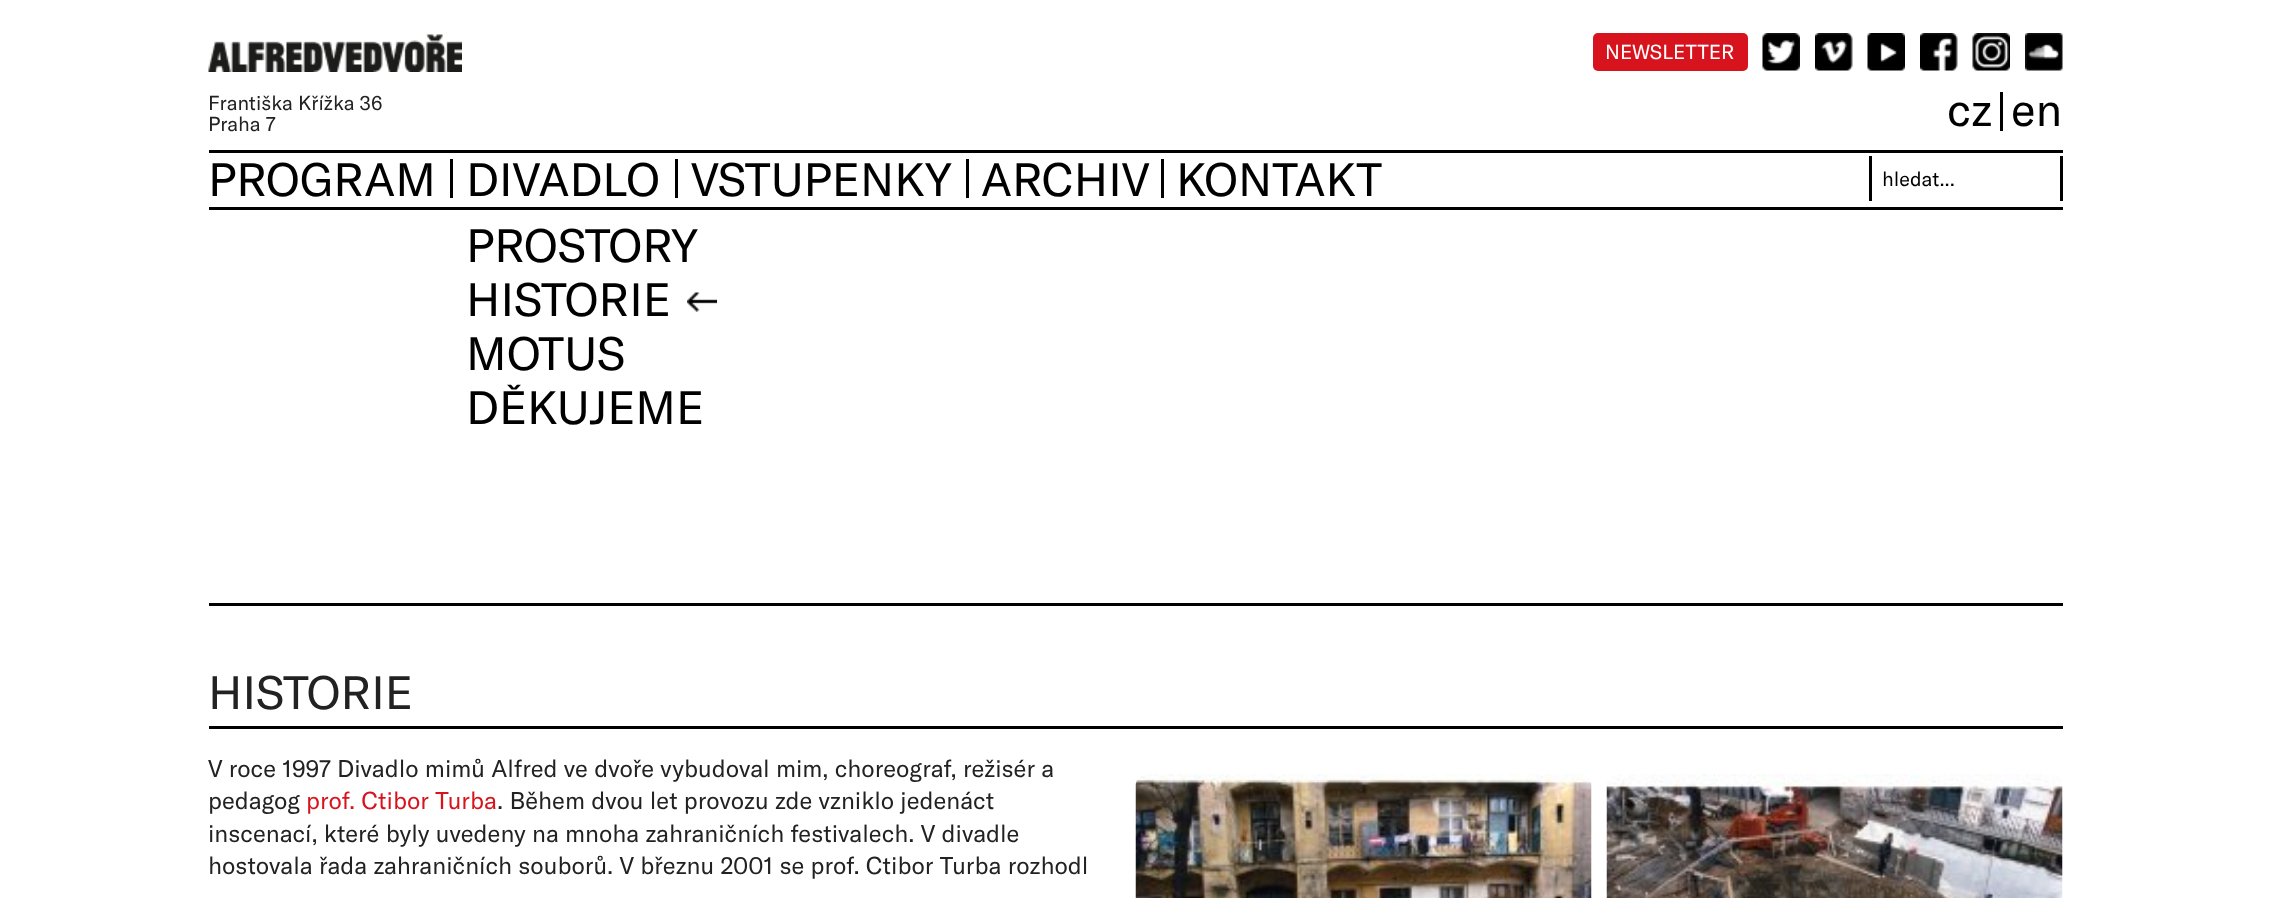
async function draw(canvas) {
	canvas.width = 2269;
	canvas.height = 898;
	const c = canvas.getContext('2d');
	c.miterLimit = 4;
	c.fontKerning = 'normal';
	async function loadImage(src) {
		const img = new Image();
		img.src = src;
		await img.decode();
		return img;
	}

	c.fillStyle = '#fff';
	c.fillRect(0, 0, 2269, 898);
	c.drawImage(await loadImage('img1.png'), 208, 34, 254, 38);
	c.font = '20px GT America';
	c.fillStyle = '#222';
	c.fillText('Františka Křížka 36', 208, 110);
	c.fillText('Praha 7', 208, 131);
	c.fillStyle = '#d7141e';
	c.beginPath();
	c.roundRect(1593, 33, 155, 38, 5);
	c.fill();
	c.fillStyle = '#fff';
	c.fillText('NEWSLETTER', 1605, 59);
	c.drawImage(await loadImage('img2.png'), 1762, 33, 38, 38);
	c.drawImage(await loadImage('img3.png'), 1815, 33, 38, 38);
	c.drawImage(await loadImage('img4.png'), 1867, 33, 38, 38);
	c.drawImage(await loadImage('img5.png'), 1920, 33, 38, 38);
	c.drawImage(await loadImage('img6.png'), 1972, 33, 38, 38);
	c.drawImage(await loadImage('img7.png'), 2025, 33, 38, 38);
	c.font = '46px GT America';
	c.fillStyle = '#000';
	c.fillText('cz', 1947, 126);
	c.fillRect(2000, 92, 3, 39);
	c.fillText('en', 2011, 126);
	c.fillRect(209, 150, 1854, 3);
	c.fillRect(209, 603, 1854, 3);
	c.fillText('PROGRAM', 208, 196);
	c.fillRect(450, 159, 3, 39);
	c.fillText('DIVADLO', 466, 196);
	c.fillRect(675, 159, 3, 39);
	c.fillText('PROSTORY', 466, 262);
	c.fillText('HISTORIE', 466, 316);
	c.drawImage(await loadImage('img8.png'), 687, 292, 30, 20);
	for (const [text, x, y] of [
		['MOTUS', 466, 370],
		['DĚKUJEME', 466, 424],
		['VSTUPENKY', 691, 196],
	]) {
		c.fillText(text, x, y);
	}
	c.fillRect(966, 159, 3, 39);
	c.fillText('ARCHIV', 981, 196);
	c.fillRect(1161, 159, 3, 39);
	c.fillText('KONTAKT', 1176, 196);
	c.fillRect(2060, 156, 3, 45);
	c.fillRect(1869, 156, 3, 45);
	c.font = '20px GT America';
	c.fillText('hledat...', 1882, 186);
	c.fillRect(209, 207, 1854, 3);
	c.fillRect(209, 726, 1854, 3);
	c.font = '46px GT America';
	c.fillStyle = '#222';
	c.fillText('HISTORIE', 208, 709);
	c.font = '24px GT America';
	c.fillText('V roce 1997 Divadlo mimů Alfred ve dvoře vybudoval mim, choreograf, režisér a', 208, 777);
	c.fillText('pedagog', 208, 809);
	c.fillStyle = '#d7141e';
	c.fillText('prof. Ctibor Turba', 306, 809);
	c.fillStyle = '#222';
	for (const [text, x, y] of [
		['. Během dvou let provozu zde vzniklo jedenáct', 497, 809],
		['inscenací, které byly uvedeny na mnoha zahraničních festivalech. V divadle', 208, 842],
		['hostovala řada zahraničních souborů. V březnu 2001 se prof. Ctibor Turba rozhodl', 208, 874],
	]) {
		c.fillText(text, x, y);
	}
	c.drawImage(await loadImage('img9.png'), 1135, 774, 457, 124);
	c.drawImage(await loadImage('img10.png'), 1606, 774, 457, 124);
}

draw(document.querySelector('canvas'));
